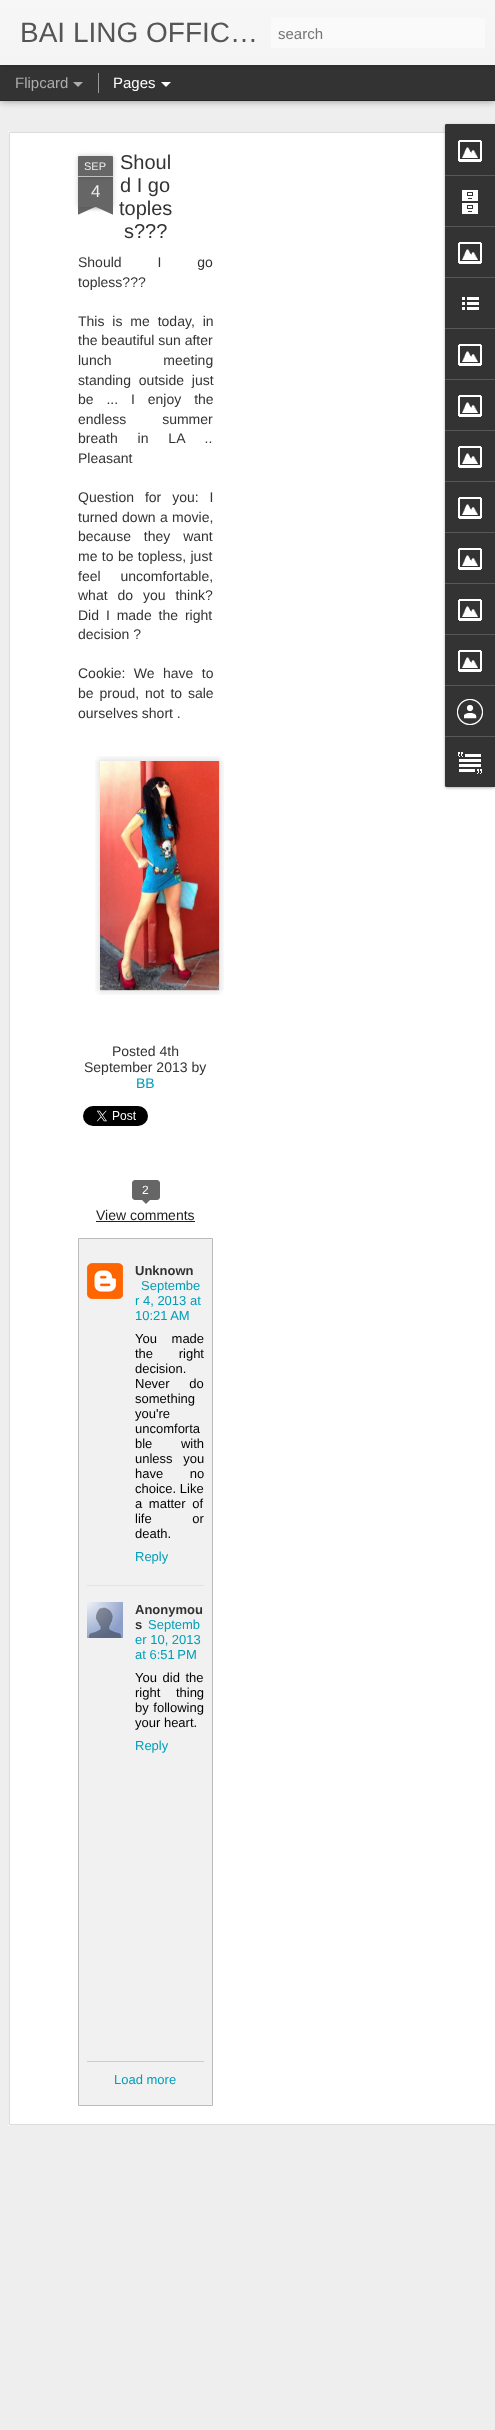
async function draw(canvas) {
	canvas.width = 495;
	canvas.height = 2430;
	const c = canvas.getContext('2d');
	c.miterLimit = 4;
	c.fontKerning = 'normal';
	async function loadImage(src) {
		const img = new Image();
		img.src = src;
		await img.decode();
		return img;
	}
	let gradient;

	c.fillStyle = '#333';
	c.fillRect(0, 0, 495, 2430);
	c.fillStyle = '#eee';
	c.fillRect(0, 101, 495, 2329);
	c.fillStyle = '#00000080';
	c.filter = 'blur(4px)';
	c.beginPath();
	c.rect(0, 65, 495, 35);
	c.fill();
	c.filter = 'none';
	c.fillStyle = '#333';
	c.fillRect(0, 65, 495, 35);
	c.fillStyle = '#999';
	c.fillRect(98, 73, 1, 20);
	c.fillStyle = '#0000004d';
	c.filter = 'blur(2.5px)';
	c.beginPath();
	c.rect(0, 0, 495, 65);
	c.fill();
	c.filter = 'none';
	gradient = c.createLinearGradient(0, 0, 0, 65);
	gradient.addColorStop(0, '#f7f7f7');
	gradient.addColorStop(1, '#f4f4f4');
	c.fillStyle = gradient;
	c.fillRect(0, 0, 495, 65);
	c.font = '28px Liberation Sans';
	c.fillStyle = '#555';
	c.fillText('BAI LING OFFIC…', 20, 42);
	c.fillStyle = '#fafafa';
	c.beginPath();
	c.roundRect(271, 18, 214, 30, 3);
	c.fill();
	c.font = '15px Liberation Sans';
	c.fillStyle = '#757575';
	c.fillText('search', 278, 39);
	c.fillStyle = '#adadad';
	c.fillText('Flipcard', 15, 88);
	c.beginPath();
	c.moveTo(73, 82);
	c.lineTo(83, 82);
	c.lineTo(78, 87);
	c.closePath();
	c.fill();
	c.fillStyle = '#fff';
	c.fillText('Pages', 113, 88);
	c.beginPath();
	c.moveTo(161, 82);
	c.lineTo(171, 82);
	c.lineTo(166, 87);
	c.closePath();
	c.fill();
	c.fillRect(8, 131, 487, 1995);
	c.drawImage(await loadImage('img1.png'), 8, 131, 487, 1995);
	c.fillStyle = '#00000033';
	c.filter = 'blur(2.5px)';
	c.beginPath();
	c.rect(78, 177, 35, 30);
	c.fill();
	c.filter = 'none';
	c.fillStyle = '#666';
	c.fillRect(78, 177, 35, 30);
	c.fillStyle = '#00000033';
	c.filter = 'blur(2.5px)';
	c.beginPath();
	c.roundRect(78, 156, 35, 21, 1);
	c.fill();
	c.filter = 'none';
	c.fillStyle = '#666';
	c.beginPath();
	c.roundRect(78, 156, 35, 21, [1, 1, 0, 0]);
	c.fill();
	c.fillStyle = '#c2c2c2';
	c.fillRect(78, 176, 35, 1);
	c.font = '11px Liberation Sans';
	c.fillStyle = '#eee';
	c.fillText('SEP', 84, 170);
	c.font = '17px Liberation Sans';
	c.fillText('4', 91, 197);
	c.save();
	c.beginPath();
	c.rect(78, 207, 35, 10);
	c.clip();
	c.fillStyle = '#00000033';
	c.filter = 'blur(2.5px)';
	c.beginPath();
	c.rect(69, 197, 50, 10);
	c.fill();
	c.filter = 'none';
	c.restore();
	c.save();
	c.beginPath();
	c.rect(78, 207, 35, 10);
	c.clip();
	c.fillStyle = '#666';
	c.beginPath();
	c.moveTo(69, 208);
	c.lineTo(115, 187);
	c.lineTo(119, 196);
	c.lineTo(73, 217);
	c.closePath();
	c.fill();
	c.restore();
	c.save();
	c.beginPath();
	c.rect(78, 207, 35, 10);
	c.clip();
	c.fillStyle = '#00000033';
	c.filter = 'blur(2.5px)';
	c.beginPath();
	c.rect(72, 197, 50, 10);
	c.fill();
	c.filter = 'none';
	c.restore();
	c.save();
	c.beginPath();
	c.rect(78, 207, 35, 10);
	c.clip();
	c.fillStyle = '#666';
	c.beginPath();
	c.moveTo(76, 187);
	c.lineTo(122, 208);
	c.lineTo(118, 217);
	c.lineTo(72, 196);
	c.closePath();
	c.fill();
	c.restore();
	c.font = '20px Liberation Sans';
	c.fillStyle = '#333';
	for (const [text, x, y] of [
		['Shoul', 120, 169],
		['d I go', 120, 192],
		['toples', 119, 215],
		['s???', 124, 238],
	]) {
		c.fillText(text, x, y);
	}
	c.wordSpacing = '32px';
	c.font = '14px Liberation Sans';
	c.fillText('Should I go', 78, 267);
	c.wordSpacing = '0px';
	c.fillText('topless???', 78, 287);
	c.wordSpacing = '4px';
	c.fillText('This is me today, in', 78, 326);
	c.wordSpacing = '0px';
	c.fillText('the beautiful sun after', 78, 345);
	c.wordSpacing = '48px';
	c.fillText('lunch meeting', 78, 365);
	c.wordSpacing = '4px';
	c.fillText('standing outside just', 78, 385);
	c.wordSpacing = '9px';
	c.fillText('be ... I enjoy the', 78, 404);
	c.wordSpacing = '32px';
	c.fillText('endless summer', 78, 424);
	c.wordSpacing = '16px';
	c.fillText('breath in LA ..', 78, 443);
	c.wordSpacing = '0px';
	c.fillText('Pleasant', 78, 463);
	c.wordSpacing = '7px';
	c.fillText('Question for you: I', 78, 502);
	c.wordSpacing = '0.5px';
	c.fillText('turned down a movie,', 78, 522);
	c.wordSpacing = '9px';
	c.fillText('because they want', 78, 541);
	c.wordSpacing = '0.5px';
	c.fillText('me to be topless, just', 78, 561);
	c.wordSpacing = '16px';
	c.fillText('feel uncomfortable,', 78, 581);
	c.wordSpacing = '6px';
	c.fillText('what do you think?', 78, 600);
	c.wordSpacing = '3px';
	c.fillText('Did I made the right', 78, 620);
	c.wordSpacing = '0px';
	c.fillText('decision ?', 78, 639);
	c.wordSpacing = '4.5px';
	c.fillText('Cookie: We have to', 78, 678);
	c.wordSpacing = '2px';
	c.fillText('be proud, not to sale', 78, 698);
	c.wordSpacing = '0px';
	c.fillText('ourselves short .', 78, 718);
	c.drawImage(await loadImage('img2.png'), 95, 756, 129, 239);
	c.drawImage(await loadImage('img3.png'), 100, 761, 120, 230);
	c.fillText('Posted 4th', 112, 1056);
	c.fillText('September 2013 by', 84, 1072);
	c.fillStyle = '#009eb8';
	c.fillText('BB', 136, 1088);
	c.drawImage(await loadImage('img4.png'), 83, 1106, 65, 20);
	c.fillStyle = '#666';
	c.beginPath();
	c.roundRect(132.5, 1180.5, 27, 19, 2.5);
	c.fill();
	c.strokeStyle = '#666';
	c.stroke();
	c.font = '12px Liberation Sans';
	c.fillStyle = '#fff';
	c.fillText('2', 142, 1194);
	c.fillStyle = '#666';
	c.beginPath();
	c.moveTo(141, 1199);
	c.lineTo(151, 1199);
	c.lineTo(146, 1204);
	c.closePath();
	c.fill();
	c.font = '14px Liberation Sans';
	c.fillStyle = '#222';
	c.fillText('View comments', 96, 1220);
	c.fillRect(96, 1221, 99, 1);
	c.fillStyle = '#f1f1f1';
	c.beginPath();
	c.rect(78.5, 1238.5, 134, 867);
	c.fill();
	c.strokeStyle = '#bbb';
	c.stroke();
	c.fillStyle = '#e3e3e3';
	c.fillRect(87, 1585, 117, 1);
	c.drawImage(await loadImage('img5.png'), 87, 1263, 36, 36);
	c.font = 'bold 13px Liberation Sans';
	c.fillStyle = '#333';
	c.fillText('Unknown', 135, 1275);
	c.font = '13px Liberation Sans';
	c.fillStyle = '#009eb8';
	for (const [text, x, y] of [
		['Septembe', 141, 1290],
		['r 4, 2013 at', 135, 1305],
		['10:21 AM', 135, 1320],
	]) {
		c.fillText(text, x, y);
	}
	c.wordSpacing = '11px';
	c.fillStyle = '#000';
	c.fillText('You made', 135, 1343);
	c.wordSpacing = '22px';
	c.fillText('the right', 135, 1358);
	c.wordSpacing = '0px';
	c.fillText('decision.', 135, 1373);
	c.wordSpacing = '16px';
	c.fillText('Never do', 135, 1388);
	c.wordSpacing = '0px';
	for (const [text, x, y] of [
		['something', 135, 1403],
		['you\'re', 135, 1418],
		['uncomforta', 135, 1433],
	]) {
		c.fillText(text, x, y);
	}
	c.wordSpacing = '25px';
	c.fillText('ble with', 135, 1448);
	c.wordSpacing = '7px';
	c.fillText('unless you', 135, 1463);
	c.wordSpacing = '23px';
	c.fillText('have no', 135, 1478);
	c.wordSpacing = '0px';
	c.fillText('choice. Like', 135, 1493);
	c.wordSpacing = '3px';
	c.fillText('a matter of', 135, 1508);
	c.wordSpacing = '37px';
	c.fillText('life or', 135, 1523);
	c.wordSpacing = '0px';
	c.fillText('death.', 135, 1538);
	c.fillStyle = '#009eb8';
	c.fillText('Reply', 135, 1561);
	c.drawImage(await loadImage('img6.png'), 87, 1602, 36, 36);
	c.font = 'bold 13px Liberation Sans';
	c.fillStyle = '#333';
	c.fillText('Anonymou', 135, 1614);
	c.fillText('s', 135, 1629);
	c.font = '13px Liberation Sans';
	c.fillStyle = '#009eb8';
	for (const [text, x, y] of [
		['Septemb', 148, 1629],
		['er 10, 2013', 135, 1644],
		['at 6:51 PM', 135, 1659],
	]) {
		c.fillText(text, x, y);
	}
	c.wordSpacing = '2px';
	c.fillStyle = '#000';
	c.fillText('You did the', 135, 1682);
	c.wordSpacing = '12px';
	c.fillText('right thing', 135, 1697);
	c.wordSpacing = '1px';
	c.fillText('by following', 135, 1712);
	c.wordSpacing = '0px';
	c.fillText('your heart.', 135, 1727);
	c.fillStyle = '#009eb8';
	c.fillText('Reply', 135, 1750);
	c.fillStyle = '#ccc';
	c.fillRect(87, 2061, 117, 1);
	c.fillStyle = '#009eb8';
	c.fillText('Load more', 114, 2084);
	c.fillStyle = '#0000004d';
	c.filter = 'blur(1.5px)';
	c.beginPath();
	c.roundRect(445, 125, 50, 663, 2);
	c.fill();
	c.filter = 'none';
	c.fillStyle = '#333';
	c.beginPath();
	c.roundRect(445, 124, 50, 663, [2, 0, 0, 2]);
	c.fill();
	c.beginPath();
	c.roundRect(445, 124, 50, 51, [2, 0, 0, 0]);
	c.fill();
	c.drawImage(await loadImage('img7.png'), 458, 140, 24, 22);
	c.fillStyle = '#585858';
	c.fillRect(445, 175, 50, 1);
	c.drawImage(await loadImage('img8.png'), 462, 190, 16, 24);
	c.fillRect(445, 226, 50, 1);
	c.drawImage(await loadImage('img7.png'), 458, 242, 24, 22);
	c.fillRect(445, 277, 50, 1);
	c.drawImage(await loadImage('img9.png'), 462, 297, 17, 13);
	c.fillRect(445, 328, 50, 1);
	c.drawImage(await loadImage('img7.png'), 458, 344, 24, 22);
	c.fillRect(445, 379, 50, 1);
	c.drawImage(await loadImage('img7.png'), 458, 395, 24, 22);
	c.fillRect(445, 430, 50, 1);
	c.drawImage(await loadImage('img7.png'), 458, 446, 24, 22);
	c.fillRect(445, 481, 50, 1);
	c.drawImage(await loadImage('img7.png'), 458, 497, 24, 22);
	c.fillRect(445, 532, 50, 1);
	c.drawImage(await loadImage('img7.png'), 458, 548, 24, 22);
	c.fillRect(445, 583, 50, 1);
	c.drawImage(await loadImage('img7.png'), 458, 599, 24, 22);
	c.fillRect(445, 634, 50, 1);
	c.drawImage(await loadImage('img7.png'), 458, 650, 24, 22);
	c.fillRect(445, 685, 50, 1);
	c.drawImage(await loadImage('img10.png'), 457, 699, 26, 26);
	c.fillStyle = '#333';
	c.beginPath();
	c.roundRect(445, 736, 50, 51, [0, 0, 0, 2]);
	c.fill();
	c.fillStyle = '#585858';
	c.fillRect(445, 736, 50, 1);
	c.drawImage(await loadImage('img11.png'), 458, 752, 24, 22);
}

draw(document.querySelector('canvas'));
